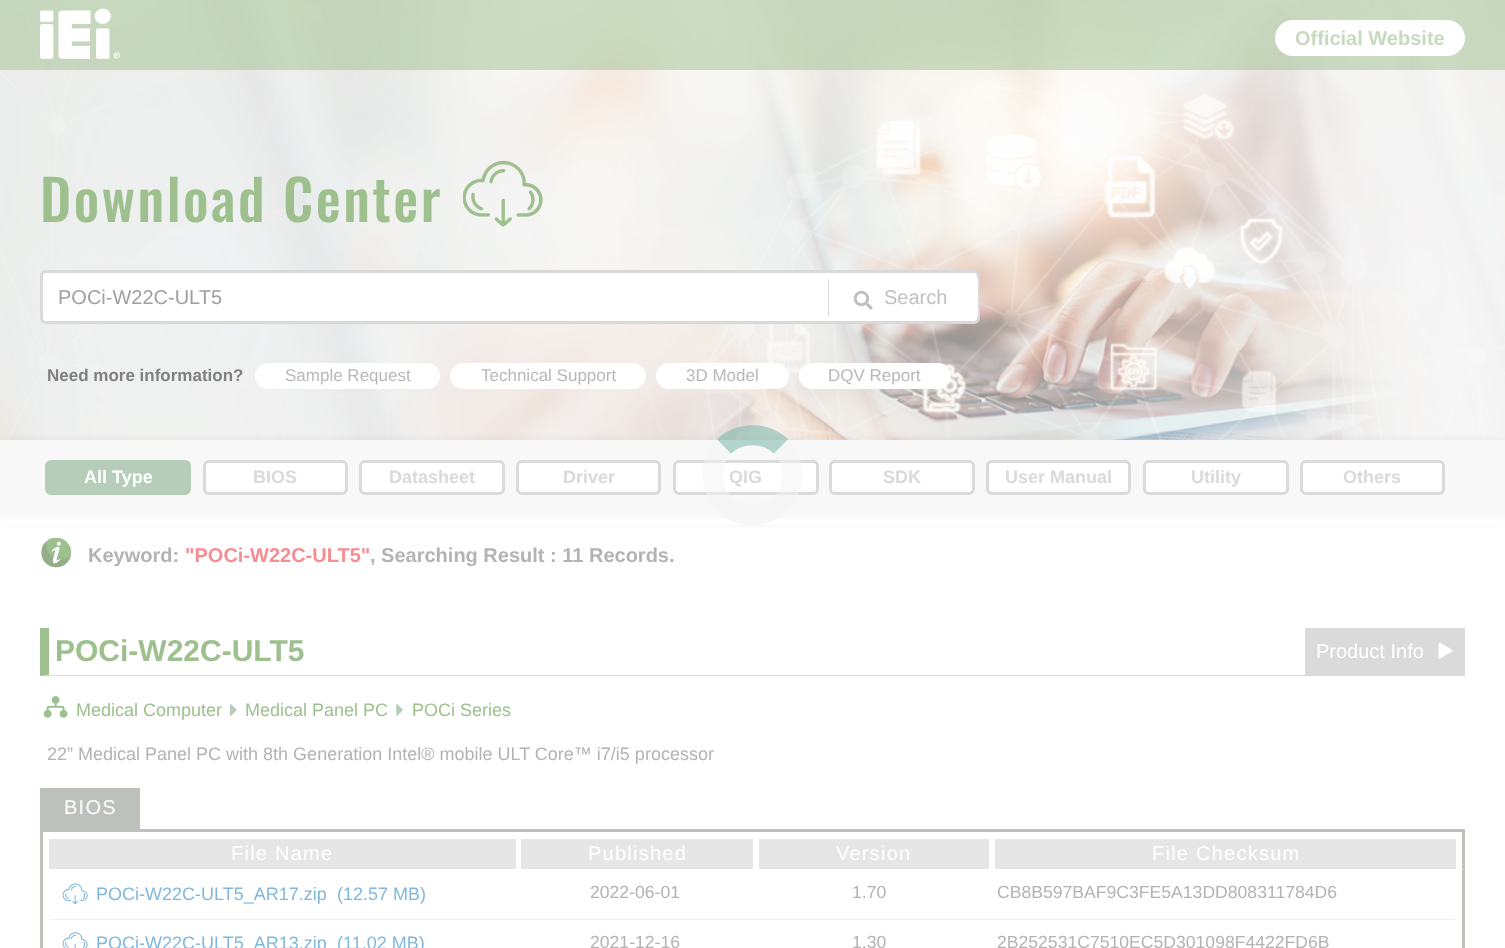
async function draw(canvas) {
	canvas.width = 1505;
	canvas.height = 948;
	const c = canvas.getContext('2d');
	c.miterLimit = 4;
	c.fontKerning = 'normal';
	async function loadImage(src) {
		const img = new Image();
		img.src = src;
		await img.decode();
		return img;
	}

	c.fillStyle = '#fff';
	c.fillRect(0, 0, 1505, 948);
	c.drawImage(await loadImage('img2.png'), 0, 0, 1505, 440);
	c.fillStyle = '#9dc08e80';
	c.fillRect(0, 0, 1505, 70);
	c.drawImage(await loadImage('img1.png'), 40, 8, 80, 51);
	c.fillStyle = '#fff';
	c.beginPath();
	c.roundRect(1275, 20, 190, 36, 18);
	c.fill();
	c.font = 'bold 20px Liberation Sans';
	c.fillStyle = '#c8d9bf';
	c.fillText('Official Website', 1295, 45);
	c.letterSpacing = '2.5px';
	c.font = '500 56px Oswald';
	c.fillStyle = '#9dc08e';
	c.fillText('Download Center', 40, 222);
	c.drawImage(await loadImage('img3.png'), 463, 160, 80, 67);
	c.fillStyle = '#fff';
	c.beginPath();
	c.roundRect(41.5, 271.5, 937, 51, 4.5);
	c.fill();
	c.strokeStyle = '#d9d9d9';
	c.lineWidth = 3;
	c.stroke();
	c.letterSpacing = '0px';
	c.font = '20px Liberation Sans';
	c.fillStyle = '#9f9f9f';
	c.fillText('POCi-W22C-ULT5', 58, 304);
	c.fillStyle = '#fff';
	c.fillRect(977, 279, 1, 37);
	c.fillStyle = '#d9d9d9';
	c.fillRect(828, 279, 1, 37);
	c.drawImage(await loadImage('img4.png'), 853, 290, 20, 20);
	c.fillStyle = '#c0c0c0';
	c.fillText('Search', 884, 304);
	c.font = 'bold 17px Liberation Sans';
	c.fillStyle = '#808080';
	c.fillText('Need more information?', 47, 381);
	c.fillStyle = '#fff';
	c.beginPath();
	c.roundRect(255, 363, 185, 26, 13);
	c.fill();
	c.font = '17px Liberation Sans';
	c.fillStyle = '#b9b8b8';
	c.fillText('Sample Request', 285, 381);
	c.fillStyle = '#fff';
	c.beginPath();
	c.roundRect(450, 363, 196, 26, 13);
	c.fill();
	c.fillStyle = '#b9b8b8';
	c.fillText('Technical Support', 481, 381);
	c.fillStyle = '#fff';
	c.beginPath();
	c.roundRect(656, 363, 133, 26, 13);
	c.fill();
	c.fillStyle = '#b9b8b8';
	c.fillText('3D Model', 686, 381);
	c.fillStyle = '#fff';
	c.beginPath();
	c.roundRect(799, 363, 152, 26, 13);
	c.fill();
	c.fillStyle = '#b9b8b8';
	c.fillText('DQV Report', 828, 381);
	c.fillStyle = '#a5a5a52e';
	c.filter = 'blur(5px)';
	c.beginPath();
	c.rect(0, 443, 1505, 77);
	c.fill();
	c.filter = 'none';
	c.filter = 'blur(5px)';
	c.beginPath();
	c.rect(0, 443, 1505, 77);
	c.fill();
	c.filter = 'none';
	c.fillStyle = '#f8f8f8';
	c.fillRect(0, 440, 1505, 78);
	c.fillStyle = '#b6cdba';
	c.beginPath();
	c.roundRect(46.5, 461.5, 143, 32, 4.5);
	c.fill();
	c.strokeStyle = '#b6cdba';
	c.stroke();
	c.font = 'bold 18px Liberation Sans';
	c.fillStyle = '#fff';
	c.fillText('All Type', 84, 483);
	c.beginPath();
	c.roundRect(204.5, 461.5, 142, 32, 4.5);
	c.fill();
	c.strokeStyle = '#dadada';
	c.stroke();
	c.fillStyle = '#dadada';
	c.fillText('BIOS', 253, 483);
	c.fillStyle = '#fff';
	c.beginPath();
	c.roundRect(360.5, 461.5, 143, 32, 4.5);
	c.fill();
	c.stroke();
	c.fillStyle = '#dadada';
	c.fillText('Datasheet', 389, 483);
	c.fillStyle = '#fff';
	c.beginPath();
	c.roundRect(517.5, 461.5, 142, 32, 4.5);
	c.fill();
	c.stroke();
	c.fillStyle = '#dadada';
	c.fillText('Driver', 563, 483);
	c.fillStyle = '#fff';
	c.beginPath();
	c.roundRect(674.5, 461.5, 143, 32, 4.5);
	c.fill();
	c.stroke();
	c.fillStyle = '#dadada';
	c.fillText('QIG', 729, 483);
	c.fillStyle = '#fff';
	c.beginPath();
	c.roundRect(830.5, 461.5, 143, 32, 4.5);
	c.fill();
	c.stroke();
	c.fillStyle = '#dadada';
	c.fillText('SDK', 883, 483);
	c.fillStyle = '#fff';
	c.beginPath();
	c.roundRect(987.5, 461.5, 142, 32, 4.5);
	c.fill();
	c.stroke();
	c.fillStyle = '#dadada';
	c.fillText('User Manual', 1005, 483);
	c.fillStyle = '#fff';
	c.beginPath();
	c.roundRect(1144.5, 461.5, 143, 32, 4.5);
	c.fill();
	c.stroke();
	c.fillStyle = '#dadada';
	c.fillText('Utility', 1191, 483);
	c.fillStyle = '#fff';
	c.beginPath();
	c.roundRect(1301.5, 461.5, 142, 32, 4.5);
	c.fill();
	c.stroke();
	c.fillStyle = '#dadada';
	c.fillText('Others', 1343, 483);
	c.fillStyle = '#fdfdfd';
	c.fillRect(0, 518, 1505, 7);
	c.drawImage(await loadImage('img5.png'), 41, 538, 30, 30);
	c.font = 'bold 20px Liberation Sans';
	c.fillStyle = '#b3b3b3';
	c.fillText('Keyword:', 88, 562);
	c.fillStyle = '#f68d92';
	c.fillText('"POCi-W22C-ULT5"', 185, 562);
	c.fillStyle = '#b3b3b3';
	c.fillText(', Searching Result : 11 Records.', 370, 562);
	c.fillStyle = '#dadada';
	c.beginPath();
	c.moveTo(1465, 676);
	c.lineTo(40, 676);
	c.lineTo(49, 675);
	c.lineTo(1465, 675);
	c.closePath();
	c.fill();
	c.fillStyle = '#9dc08e';
	c.beginPath();
	c.moveTo(40, 676);
	c.lineTo(40, 628);
	c.lineTo(49, 628);
	c.lineTo(49, 675);
	c.closePath();
	c.fill();
	c.font = 'bold 30px Liberation Sans';
	c.fillText('POCi-W22C-ULT5', 55, 661);
	c.fillStyle = '#dadada';
	c.fillRect(1305, 628, 160, 47);
	c.font = '20px Liberation Sans';
	c.fillStyle = '#fff';
	c.fillText('Product Info', 1316, 658);
	c.drawImage(await loadImage('img6.png'), 1438, 643, 15, 16);
	c.drawImage(await loadImage('img7.png'), 44, 696, 24, 22);
	c.font = '18px Liberation Sans';
	c.fillStyle = '#9dc08e';
	c.fillText('Medical Computer', 76, 716);
	c.drawImage(await loadImage('img8.png'), 230, 704, 7, 12);
	c.fillText('Medical Panel PC', 245, 716);
	c.drawImage(await loadImage('img9.png'), 396, 704, 7, 12);
	c.fillText('POCi Series', 412, 716);
	c.fillStyle = '#b3b3b3';
	c.fillText('22” Medical Panel PC with 8th Generation Intel® mobile ULT Core™ i7/i5 processor', 47, 760);
	c.fillStyle = '#bcc1bc';
	c.fillRect(40, 788, 100, 41);
	c.letterSpacing = '1.25px';
	c.font = '20px Liberation Sans';
	c.fillStyle = '#fff';
	c.fillText('BIOS', 64, 814);
	c.strokeStyle = '#bcc1bc';
	c.strokeRect(41.5, 830.5, 1422, 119);
	c.fillRect(1462, 869, 1, 1);
	c.fillStyle = '#e6e6e6';
	c.fillRect(49, 839, 467, 30);
	c.fillStyle = '#fff';
	c.fillText('File Name', 231, 860);
	c.fillStyle = '#e6e6e6';
	c.fillRect(521, 839, 232, 30);
	c.fillStyle = '#fff';
	c.fillText('Published', 588, 860);
	c.fillStyle = '#e6e6e6';
	c.fillRect(759, 839, 230, 30);
	c.fillStyle = '#fff';
	c.fillText('Version', 836, 860);
	c.fillStyle = '#e6e6e6';
	c.fillRect(995, 839, 461, 30);
	c.fillStyle = '#fff';
	c.fillText('File Checksum', 1152, 860);
	c.fillStyle = '#efefef';
	c.fillRect(50, 919, 1405, 1);
	c.drawImage(await loadImage('img10.png'), 62, 883, 26, 22);
	c.letterSpacing = '0px';
	c.font = '18px Liberation Sans';
	c.fillStyle = '#80b8dd';
	c.fillText('POCi-W22C-ULT5_AR17.zip', 96, 900);
	c.fillText('(12.57 MB)', 337, 900);
	c.font = '17.6px Liberation Sans';
	c.fillStyle = '#b3b3b3';
	for (const [text, x, y] of [
		['2022-06-01', 590, 898],
		['1.70', 852, 898],
		['CB8B597BAF9C3FE5A13DD808311784D6', 997, 898],
	]) {
		c.fillText(text, x, y);
	}
	c.drawImage(await loadImage('img11.png'), 62, 932, 26, 16);
	c.font = '18px Liberation Sans';
	c.fillStyle = '#80b8dd';
	c.fillText('POCi-W22C-ULT5_AR13.zip', 96, 949);
	c.fillText('(11.02 MB)', 337, 949);
	c.font = '17.6px Liberation Sans';
	c.fillStyle = '#b3b3b3';
	for (const [text, x, y] of [
		['2021-12-16', 590, 948],
		['1.30', 852, 948],
		['2B252531C7510EC5D301098F4422FD6B', 997, 948],
	]) {
		c.fillText(text, x, y);
	}
	c.beginPath();
	c.moveTo(724, 446.5);
	c.bezierCurveTo(739.5, 431.5, 765.5, 431.5, 781, 446.5);
	c.strokeStyle = '#6cb0a280';
	c.lineWidth = 20;
	c.stroke();
	c.beginPath();
	c.moveTo(781, 446.5);
	c.bezierCurveTo(788, 454, 792.5, 464.5, 792.5, 475);
	c.bezierCurveTo(792.5, 510.5, 749, 528.5, 724, 503.5);
	c.bezierCurveTo(718.5, 497.5, 715, 490.5, 713.5, 483);
	c.bezierCurveTo(710.5, 470, 715, 456, 724, 446.5);
	c.strokeStyle = '#f3f3f380';
	c.stroke();
}

draw(document.querySelector('canvas'));
